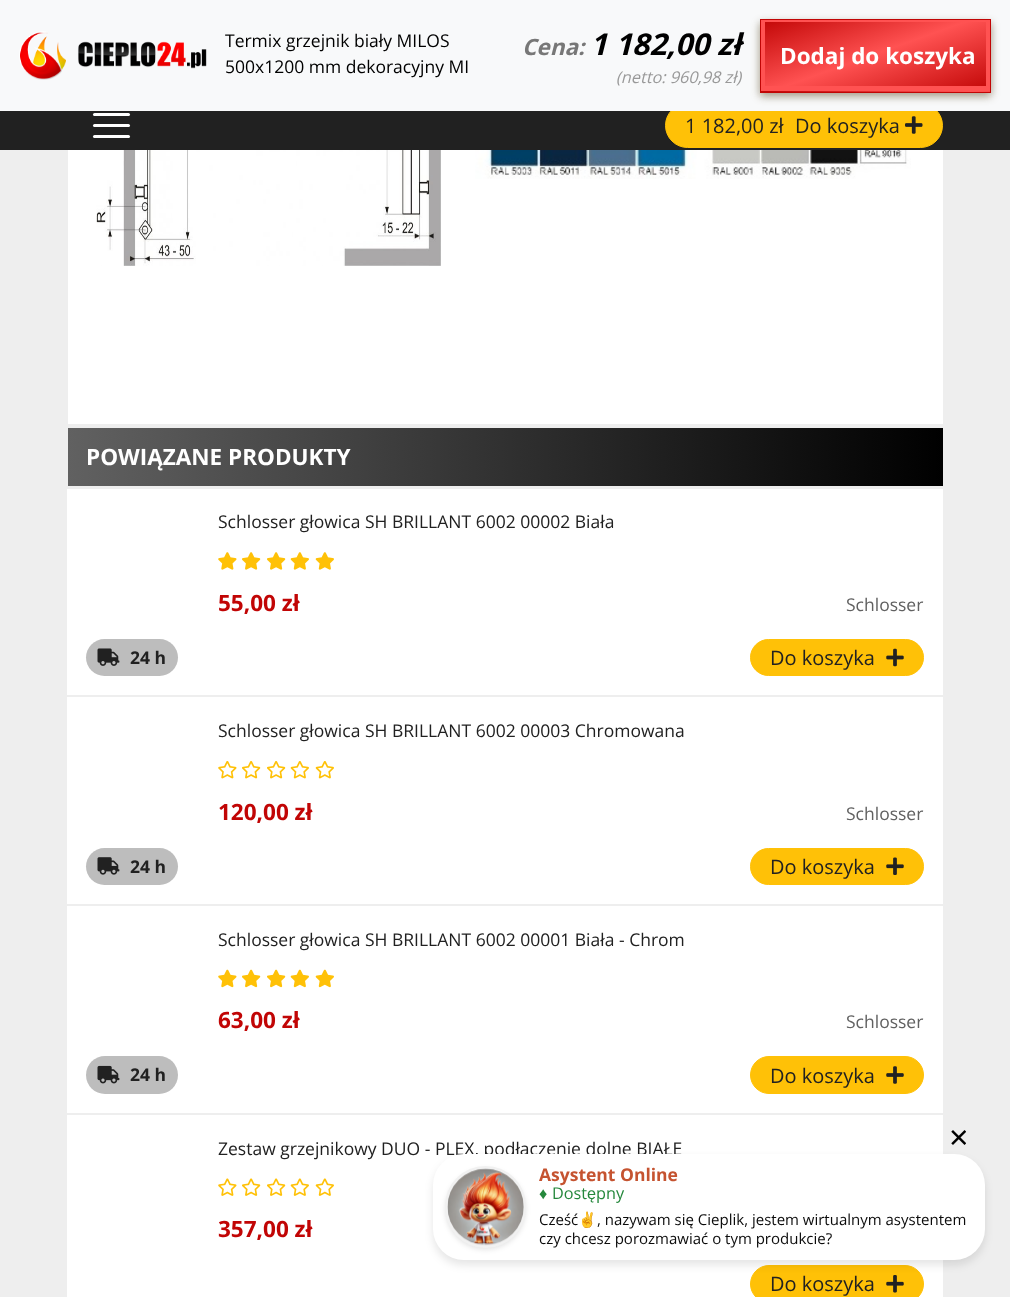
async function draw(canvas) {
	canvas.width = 1010;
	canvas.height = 1297;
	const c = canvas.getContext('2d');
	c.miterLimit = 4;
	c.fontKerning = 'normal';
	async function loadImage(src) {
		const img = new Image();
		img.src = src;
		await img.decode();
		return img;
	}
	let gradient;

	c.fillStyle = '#eee';
	c.fillRect(0, 0, 1010, 1297);
	c.fillStyle = '#212121';
	c.fillRect(0, 111, 1010, 39);
	c.fillStyle = '#ffc107';
	c.beginPath();
	c.roundRect(665.5, 103.5, 277, 44, 22);
	c.fill();
	c.strokeStyle = '#ffc107';
	c.stroke();
	c.fillStyle = '#f8f9fa';
	c.fillRect(0, 0, 1010, 111);
	c.drawImage(await loadImage('img1.png'), 19, 31, 188, 49);
	c.font = '17.5px Open Sans';
	c.fillStyle = '#000';
	c.fillText('Termix grzejnik biały MILOS', 225, 47);
	c.fillText('500x1200 mm dekoracyjny MI', 225, 73);
	c.font = 'italic bold 22.5px Open Sans';
	c.fillStyle = '#777';
	c.fillText('Cena:', 522, 55);
	c.font = 'italic bold 30px Open Sans';
	c.fillStyle = '#000';
	c.fillText('1 182,00 zł', 590, 55);
	c.font = 'italic 16.25px Open Sans';
	c.fillStyle = '#999';
	c.fillText('(netto: 960,98 zł)', 616, 83);
	c.fillStyle = '#6e501466';
	c.filter = 'blur(4px)';
	c.beginPath();
	c.rect(760, 23, 231, 73);
	c.fill();
	c.filter = 'none';
	c.fillStyle = '#00000029';
	c.filter = 'blur(4px)';
	c.beginPath();
	c.rect(760, 23, 231, 73);
	c.fill();
	c.filter = 'none';
	gradient = c.createLinearGradient(851, -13, 900, 124);
	gradient.addColorStop(0, '#c10505');
	gradient.addColorStop(0.49, '#ff5252');
	gradient.addColorStop(1, '#c10505');
	c.fillStyle = gradient;
	c.fillRect(765, 22, 221, 64);
	gradient = c.createLinearGradient(851, 59, 900, 195);
	gradient.addColorStop(0, '#c10505');
	gradient.addColorStop(0.49, '#ff5252');
	gradient.addColorStop(1, '#c10505');
	c.fillStyle = gradient;
	c.fillRect(761, 91, 229, 1);
	c.save();
	c.beginPath();
	c.rect(761, 20, 229, 71);
	c.clip();
	c.fillStyle = '#ff5252';
	c.beginPath();
	c.moveTo(638, -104);
	c.lineTo(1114, -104);
	c.lineTo(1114, 215);
	c.lineTo(638, 215);
	c.closePath();
	c.moveTo(765, 22);
	c.lineTo(986, 22);
	c.lineTo(986, 86);
	c.lineTo(765, 86);
	c.closePath();
	c.fill('evenodd');
	c.restore();
	c.strokeStyle = '#c10505';
	c.strokeRect(760.5, 19.5, 230, 73);
	c.font = 'bold 22.5px Open Sans';
	c.fillStyle = '#fff';
	c.fillText('Dodaj do koszyka', 780, 64);
	c.fillRect(68, 150, 875, 274);
	c.drawImage(await loadImage('img2.png'), 96, 150, 345, 116);
	c.drawImage(await loadImage('img3.png'), 475, 150, 436, 29);
	gradient = c.createLinearGradient(68, 457, 943, 457);
	gradient.addColorStop(0, '#616161');
	gradient.addColorStop(1, '#000');
	c.fillStyle = gradient;
	c.fillRect(68, 428, 875, 58);
	c.fillStyle = '#fff';
	c.fillText('POWIĄZANE PRODUKTY', 86, 465);
	c.fillRect(67, 489, 876, 206);
	c.font = '17.5px Open Sans';
	c.fillStyle = '#212121';
	c.fillText('Schlosser głowica SH BRILLANT 6002 00002 Biała', 218, 528);
	c.drawImage(await loadImage('img4.png'), 218, 552, 19, 18);
	c.drawImage(await loadImage('img5.png'), 242, 552, 19, 18);
	c.drawImage(await loadImage('img5.png'), 267, 552, 19, 18);
	c.drawImage(await loadImage('img6.png'), 290, 552, 19, 18);
	c.drawImage(await loadImage('img6.png'), 315, 552, 19, 18);
	c.font = 'bold 22.5px Open Sans';
	c.fillStyle = '#c10505';
	c.fillText('55,00 zł', 218, 611);
	c.font = '17.5px Open Sans';
	c.fillStyle = '#616161';
	c.fillText('Schlosser', 846, 611);
	c.fillStyle = '#bdbdbd';
	c.beginPath();
	c.roundRect(86, 639, 92, 37, 18.5);
	c.fill();
	c.drawImage(await loadImage('img7.png'), 97, 648, 23, 18);
	c.font = 'bold 17.5px Open Sans';
	c.fillStyle = '#212121';
	c.fillText('24 h', 130, 664);
	c.fillStyle = '#ffc107';
	c.beginPath();
	c.roundRect(750.5, 639.5, 173, 36, 18);
	c.fill();
	c.strokeStyle = '#ffc107';
	c.stroke();
	c.font = '20px Open Sans';
	c.fillStyle = '#212121';
	c.fillText('Do koszyka', 770, 665);
	c.drawImage(await loadImage('img8.png'), 886, 648, 18, 19);
	c.fillStyle = '#fff';
	c.fillRect(67, 697, 876, 207);
	c.font = '17.5px Open Sans';
	c.fillStyle = '#212121';
	c.fillText('Schlosser głowica SH BRILLANT 6002 00003 Chromowana', 218, 737);
	c.drawImage(await loadImage('img9.png'), 218, 761, 19, 18);
	c.drawImage(await loadImage('img10.png'), 242, 761, 19, 18);
	c.drawImage(await loadImage('img10.png'), 267, 761, 19, 18);
	c.drawImage(await loadImage('img11.png'), 290, 761, 19, 18);
	c.drawImage(await loadImage('img11.png'), 315, 761, 19, 18);
	c.font = 'bold 22.5px Open Sans';
	c.fillStyle = '#c10505';
	c.fillText('120,00 zł', 218, 820);
	c.font = '17.5px Open Sans';
	c.fillStyle = '#616161';
	c.fillText('Schlosser', 846, 820);
	c.fillStyle = '#bdbdbd';
	c.beginPath();
	c.roundRect(86, 848, 92, 37, 18.5);
	c.fill();
	c.drawImage(await loadImage('img12.png'), 97, 857, 23, 18);
	c.font = 'bold 17.5px Open Sans';
	c.fillStyle = '#212121';
	c.fillText('24 h', 130, 873);
	c.fillStyle = '#ffc107';
	c.beginPath();
	c.roundRect(750.5, 848.5, 173, 36, 18);
	c.fill();
	c.stroke();
	c.font = '20px Open Sans';
	c.fillStyle = '#212121';
	c.fillText('Do koszyka', 770, 874);
	c.drawImage(await loadImage('img13.png'), 886, 857, 18, 18);
	c.fillStyle = '#fff';
	c.fillRect(67, 906, 876, 207);
	c.font = '17.5px Open Sans';
	c.fillStyle = '#212121';
	c.fillText('Schlosser głowica SH BRILLANT 6002 00001 Biała - Chrom', 218, 946);
	c.drawImage(await loadImage('img14.png'), 218, 969, 19, 19);
	c.drawImage(await loadImage('img15.png'), 242, 969, 19, 19);
	c.drawImage(await loadImage('img15.png'), 267, 969, 19, 19);
	c.drawImage(await loadImage('img16.png'), 290, 969, 19, 19);
	c.drawImage(await loadImage('img16.png'), 315, 969, 19, 19);
	c.font = 'bold 22.5px Open Sans';
	c.fillStyle = '#c10505';
	c.fillText('63,00 zł', 218, 1028);
	c.font = '17.5px Open Sans';
	c.fillStyle = '#616161';
	c.fillText('Schlosser', 846, 1028);
	c.fillStyle = '#bdbdbd';
	c.beginPath();
	c.roundRect(86, 1056, 92, 38, 19);
	c.fill();
	c.drawImage(await loadImage('img17.png'), 97, 1065, 23, 19);
	c.font = 'bold 17.5px Open Sans';
	c.fillStyle = '#212121';
	c.fillText('24 h', 130, 1081);
	c.fillStyle = '#ffc107';
	c.beginPath();
	c.roundRect(750.5, 1056.5, 173, 37, 18.5);
	c.fill();
	c.stroke();
	c.font = '20px Open Sans';
	c.fillStyle = '#212121';
	c.fillText('Do koszyka', 770, 1083);
	c.drawImage(await loadImage('img18.png'), 886, 1066, 18, 18);
	c.fillStyle = '#fff';
	c.fillRect(67, 1115, 876, 182);
	c.font = '17.5px Open Sans';
	c.fillStyle = '#212121';
	c.fillText('Zestaw grzejnikowy DUO - PLEX, podłączenie dolne BIAŁE', 218, 1155);
	c.drawImage(await loadImage('img19.png'), 218, 1178, 19, 18);
	c.drawImage(await loadImage('img20.png'), 242, 1178, 19, 18);
	c.drawImage(await loadImage('img20.png'), 267, 1178, 19, 18);
	c.drawImage(await loadImage('img21.png'), 290, 1178, 19, 18);
	c.drawImage(await loadImage('img21.png'), 315, 1178, 19, 18);
	c.font = 'bold 22.5px Open Sans';
	c.fillStyle = '#c10505';
	c.fillText('357,00 zł', 218, 1237);
	c.fillStyle = '#ffc107';
	c.beginPath();
	c.roundRect(750.5, 1265.5, 173, 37, 18.5);
	c.fill();
	c.stroke();
	c.font = '20px Open Sans';
	c.fillStyle = '#212121';
	c.fillText('Do koszyka', 770, 1291);
	c.drawImage(await loadImage('img22.png'), 886, 1275, 18, 18);
	c.fillStyle = '#fff';
	c.beginPath();
	c.roundRect(93, 113, 37, 3, 1.5);
	c.fill();
	c.beginPath();
	c.roundRect(93, 124, 37, 3, 1.5);
	c.fill();
	c.beginPath();
	c.roundRect(93, 135, 37, 3, 1.5);
	c.fill();
	c.fillStyle = '#212121';
	c.fillText('1 182,00 zł', 685, 133);
	c.fillText('Do koszyka', 795, 133);
	c.drawImage(await loadImage('img23.png'), 905, 116, 18, 18);
	c.drawImage(await loadImage('img24.png'), 951, 1130, 15, 15);
	c.fillStyle = '#0000001a';
	c.filter = 'blur(4px)';
	c.beginPath();
	c.roundRect(433, 1159, 552, 106, 31);
	c.fill();
	c.filter = 'none';
	c.fillStyle = '#fff';
	c.beginPath();
	c.roundRect(433, 1154, 552, 106, 31);
	c.fill();
	c.fillStyle = '#0000001a';
	c.filter = 'blur(2.5px)';
	c.beginPath();
	c.roundRect(445, 1169, 81, 81, 40.5);
	c.fill();
	c.filter = 'none';
	c.beginPath();
	c.roundRect(446.5, 1167.5, 78, 79, 39);
	c.strokeStyle = '#f1f1f1';
	c.lineWidth = 3;
	c.stroke();
	c.drawImage(await loadImage('img25.png'), 447, 1168, 77, 78);
	c.font = 'bold 17.5px Open Sans';
	c.fillStyle = '#c55330';
	c.fillText('Asystent Online', 539, 1181);
	c.font = '16.25px Liberation Sans';
	c.fillStyle = '#25883c';
	c.fillText('♦', 539, 1199);
	c.font = '16.25px Open Sans';
	c.fillText('Dost', 552, 1199);
	c.font = '16.25px Liberation Sans';
	c.fillText('ę', 587, 1199);
	c.font = '16.25px Open Sans';
	c.fillText('pny', 596, 1199);
	c.font = '15px Open Sans';
	c.fillStyle = '#0b0b0b';
	c.fillText('Cześć', 539, 1225);
	c.font = '15px Noto Color Emoji';
	c.fillText('✌️', 578, 1225);
	c.font = '15px Open Sans';
	c.fillText(', nazywam się Cieplik, jestem wirtualnym asystentem', 597, 1225);
	c.fillText('czy chcesz porozmawiać o tym produkcie?', 539, 1244);
}

draw(document.querySelector('canvas'));
